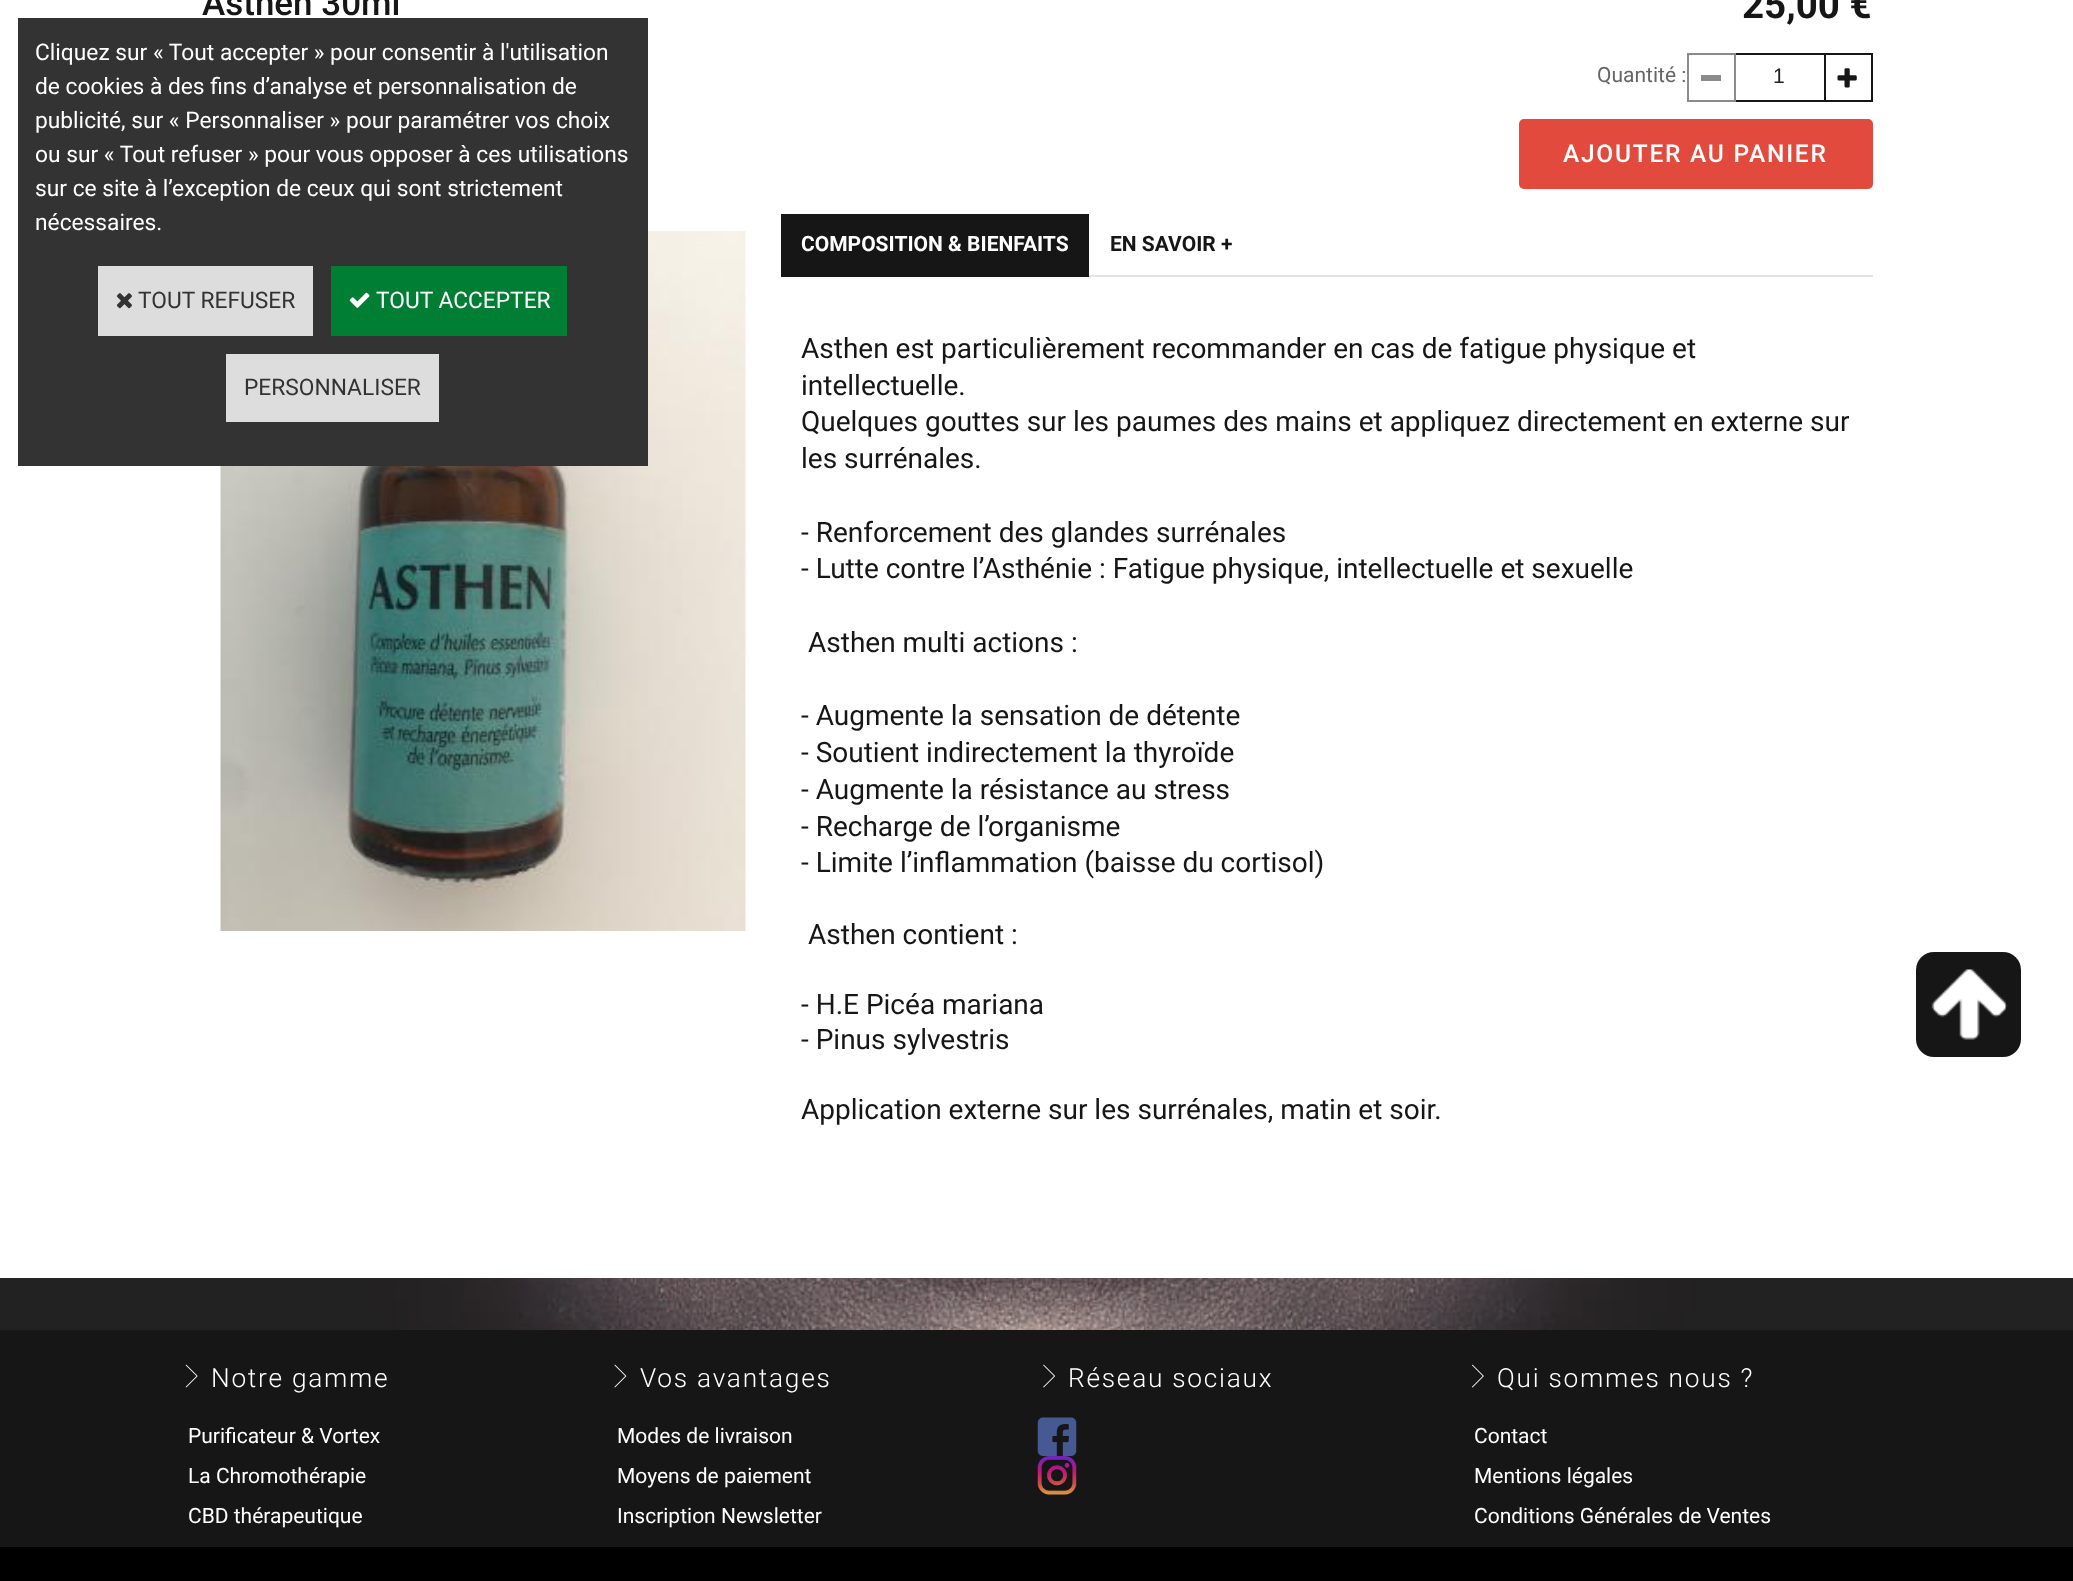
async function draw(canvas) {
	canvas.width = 2073;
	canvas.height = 1581;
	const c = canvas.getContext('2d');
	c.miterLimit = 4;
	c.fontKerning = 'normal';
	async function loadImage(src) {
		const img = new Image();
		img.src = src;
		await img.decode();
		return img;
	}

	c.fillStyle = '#fff';
	c.fillRect(0, 0, 2073, 1581);
	c.drawImage(await loadImage('img1.png'), 0, 1278, 2073, 52);
	c.font = '500 35px Roboto';
	c.fillStyle = '#161616';
	c.fillText('Asthen 30ml', 202, 15);
	c.font = 'bold 38.5px Roboto';
	c.fillText('25,00 €', 1742, 18);
	c.font = '21px Roboto';
	c.fillStyle = '#666';
	c.fillText('Quantité :', 1597, 82);
	c.strokeStyle = '#8b8b8b';
	c.lineWidth = 2;
	c.strokeRect(1688, 54, 47, 47);
	for (const [x, y, w, h, color] of [
		[1701, 75, 20, 6, '#8b8b8b'],
		[1736, 53, 88, 2, '#161616'],
		[1736, 100, 88, 2, '#161616'],
	]) {
		c.fillStyle = color;
		c.fillRect(x, y, w, h);
	}
	c.font = '21px Liberation Sans';
	c.fillStyle = '#212121';
	c.fillText('1', 1773, 83);
	c.strokeStyle = '#161616';
	c.strokeRect(1825, 54, 47, 47);
	c.drawImage(await loadImage('img2.png'), 1837, 68, 20, 20);
	c.fillStyle = '#e14a3d';
	c.beginPath();
	c.roundRect(1519, 119, 354, 70, 5);
	c.fill();
	c.letterSpacing = '1.75px';
	c.font = '500 24.5px Roboto';
	c.fillStyle = '#fff';
	c.fillText('AJOUTER AU PANIER', 1563, 162);
	c.drawImage(await loadImage('img3.png'), 220, 231, 526, 700);
	c.fillStyle = '#161616';
	c.fillRect(781, 214, 308, 63);
	c.letterSpacing = '0px';
	c.font = 'bold 21px Roboto';
	c.fillStyle = '#fff';
	c.fillText('COMPOSITION & BIENFAITS', 801, 251);
	c.fillStyle = '#161616';
	c.fillText('EN SAVOIR +', 1110, 251);
	c.fillStyle = '#e3e3e3';
	c.fillRect(1089, 275, 784, 2);
	c.font = '28px Roboto';
	c.fillStyle = '#161616';
	for (const [text, x, y] of [
		['Asthen est particulièrement recommander en cas de fatigue physique et', 801, 358],
		['intellectuelle.', 801, 395],
		['Quelques gouttes sur les paumes des mains et appliquez directement en externe sur', 801, 431],
		['les surrénales.', 801, 468],
		['- Renforcement des glandes surrénales', 801, 542],
		['- Lutte contre l’Asthénie : Fatigue physique, intellectuelle et sexuelle', 801, 578],
		['Asthen multi actions :', 808, 652],
		['- Augmente la sensation de détente', 801, 725],
		['- Soutient indirectement la thyroïde', 801, 762],
		['- Augmente la résistance au stress', 801, 799],
		['- Recharge de l’organisme', 801, 836],
		['- Limite l’inflammation (baisse du cortisol)', 801, 872],
		['Asthen contient :', 808, 944],
		['- H.E Picéa mariana', 801, 1014],
		['- Pinus sylvestris', 801, 1049],
		['Application externe sur les surrénales, matin et soir.', 801, 1119],
	]) {
		c.fillText(text, x, y);
	}
	c.fillStyle = '#333';
	c.fillRect(18, 18, 630, 448);
	c.font = '22.75px Roboto';
	c.fillStyle = '#fff';
	for (const [text, x, y] of [
		['Cliquez sur « Tout accepter » pour consentir à l\'utilisation', 35, 60],
		['de cookies à des fins d’analyse et personnalisation de', 35, 94],
		['publicité, sur « Personnaliser » pour paramétrer vos choix', 35, 128],
		['ou sur « Tout refuser » pour vous opposer à ces utilisations', 35, 162],
		['sur ce site à l’exception de ceux qui sont strictement', 35, 196],
		['nécessaires.', 35, 230],
	]) {
		c.fillText(text, x, y);
	}
	c.fillStyle = '#ddd';
	c.fillRect(98, 266, 215, 70);
	c.drawImage(await loadImage('img4.png'), 116, 293, 16, 16);
	c.fillStyle = '#333';
	c.fillText('TOUT REFUSER', 138, 308);
	c.fillStyle = '#007e33';
	c.fillRect(331, 266, 236, 70);
	c.drawImage(await loadImage('img5.png'), 349, 292, 21, 16);
	c.fillStyle = '#fff';
	c.fillText('TOUT ACCEPTER', 376, 308);
	c.fillStyle = '#ddd';
	c.fillRect(226, 354, 213, 68);
	c.fillStyle = '#333';
	c.fillText('PERSONNALISER', 244, 395);
	c.fillStyle = '#161616';
	c.beginPath();
	c.roundRect(1916, 952, 105, 105, 18);
	c.fill();
	c.drawImage(await loadImage('img6.png'), 1931, 969, 77, 71);
	c.fillRect(0, 1330, 2073, 217);
	c.drawImage(await loadImage('img7.png'), 185, 1364, 13, 24);
	c.letterSpacing = '1.75px';
	c.font = '300 26.25px Roboto';
	c.fillStyle = '#fff';
	c.fillText('Notre gamme', 211, 1387);
	c.letterSpacing = '0px';
	c.font = '21px Roboto';
	for (const [text, x, y] of [
		['Purificateur & Vortex', 188, 1443],
		['La Chromothérapie', 188, 1483],
		['CBD thérapeutique', 188, 1523],
	]) {
		c.fillText(text, x, y);
	}
	c.drawImage(await loadImage('img8.png'), 614, 1364, 13, 24);
	c.letterSpacing = '1.75px';
	c.font = '300 26.25px Roboto';
	c.fillText('Vos avantages', 640, 1387);
	c.letterSpacing = '0px';
	c.font = '21px Roboto';
	for (const [text, x, y] of [
		['Modes de livraison', 617, 1443],
		['Moyens de paiement', 617, 1483],
		['Inscription Newsletter', 617, 1523],
	]) {
		c.fillText(text, x, y);
	}
	c.drawImage(await loadImage('img9.png'), 1043, 1364, 12, 24);
	c.letterSpacing = '1.75px';
	c.font = '300 26.25px Roboto';
	c.fillText('Réseau sociaux', 1068, 1387);
	c.drawImage(await loadImage('img10.png'), 1037, 1417, 40, 39);
	c.drawImage(await loadImage('img11.png'), 1037, 1456, 40, 39);
	c.drawImage(await loadImage('img12.png'), 1472, 1364, 12, 24);
	c.fillText('Qui sommes nous ?', 1497, 1387);
	c.letterSpacing = '0px';
	c.font = '21px Roboto';
	for (const [text, x, y] of [
		['Contact', 1474, 1443],
		['Mentions légales', 1474, 1483],
		['Conditions Générales de Ventes', 1474, 1523],
	]) {
		c.fillText(text, x, y);
	}
	c.fillStyle = '#000';
	c.fillRect(0, 1547, 2073, 34);
}

draw(document.querySelector('canvas'));
